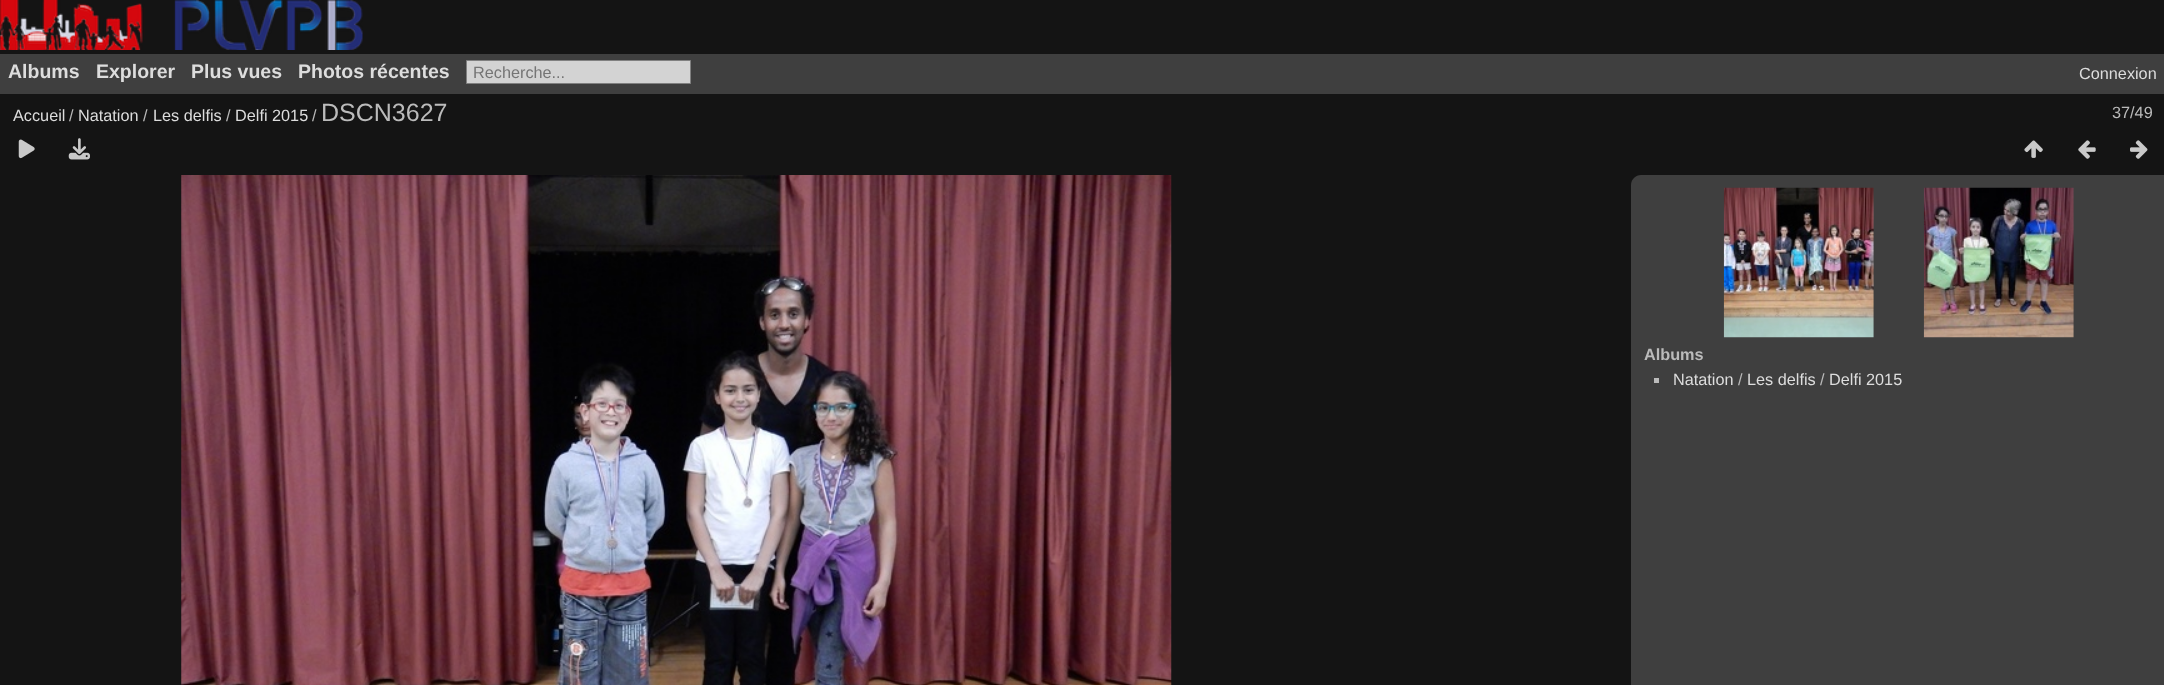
async function draw(canvas) {
	canvas.width = 2164;
	canvas.height = 685;
	const c = canvas.getContext('2d');
	c.miterLimit = 4;
	c.fontKerning = 'normal';
	async function loadImage(src) {
		const img = new Image();
		img.src = src;
		await img.decode();
		return img;
	}

	c.fillStyle = '#141414';
	c.fillRect(0, 0, 2164, 685);
	c.drawImage(await loadImage('img1.png'), 0, 0, 363, 50);
	c.fillStyle = '#3f3f3f';
	c.fillRect(0, 54, 2164, 40);
	c.font = 'bold 19.5px Liberation Sans';
	c.fillStyle = '#ddd';
	for (const [text, x, y] of [
		['Albums', 8, 78],
		['Explorer', 96, 78],
		['Plus vues', 191, 78],
		['Photos récentes', 298, 78],
	]) {
		c.fillText(text, x, y);
	}
	c.fillStyle = '#d3d3d3';
	c.beginPath();
	c.rect(466.5, 60.5, 224, 23);
	c.fill();
	c.strokeStyle = '#808080';
	c.stroke();
	c.font = '16.25px Liberation Sans';
	c.fillStyle = '#757575';
	c.fillText('Recherche...', 473, 78);
	c.fillStyle = '#ddd';
	c.fillText('Connexion', 2079, 79);
	c.fillText('Accueil', 13, 121);
	c.fillStyle = '#bbb';
	c.fillText('/', 69, 121);
	c.fillStyle = '#ddd';
	c.fillText('Natation', 78, 121);
	c.fillStyle = '#bbb';
	c.fillText('/', 143, 121);
	c.fillStyle = '#ddd';
	c.fillText('Les delfis', 153, 121);
	c.fillStyle = '#bbb';
	c.fillText('/', 226, 121);
	c.fillStyle = '#ddd';
	c.fillText('Delfi 2015', 235, 121);
	c.fillStyle = '#bbb';
	c.fillText('/', 312, 121);
	c.font = '25px Liberation Sans';
	c.fillText('DSCN3627', 321, 121);
	c.font = '16.25px Liberation Sans';
	c.fillText('37/49', 2112, 118);
	c.drawImage(await loadImage('img2.png'), 18, 139, 17, 20);
	c.drawImage(await loadImage('img3.png'), 68, 138, 22, 22);
	c.drawImage(await loadImage('img4.png'), 2024, 140, 19, 18);
	c.drawImage(await loadImage('img5.png'), 2078, 140, 18, 19);
	c.drawImage(await loadImage('img6.png'), 2130, 140, 18, 19);
	c.drawImage(await loadImage('img7.png'), 181, 175, 991, 510);
	c.fillStyle = '#3f3f3f';
	c.beginPath();
	c.moveTo(1641, 175);
	c.lineTo(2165, 175);
	c.lineTo(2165, 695);
	c.lineTo(1641, 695);
	c.bezierCurveTo(1635.5, 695, 1631, 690.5, 1631, 685);
	c.lineTo(1631, 185);
	c.bezierCurveTo(1631, 179.5, 1635.5, 175, 1641, 175);
	c.closePath();
	c.fill();
	c.drawImage(await loadImage('img8.png'), 1723, 187, 151, 151);
	c.drawImage(await loadImage('img9.png'), 1923, 187, 151, 151);
	c.font = 'bold 16.25px Liberation Sans';
	c.fillStyle = '#bbb';
	c.fillText('Albums', 1644, 360);
	c.fillRect(1654, 378, 5, 5);
	c.font = '16.25px Liberation Sans';
	c.fillStyle = '#ddd';
	c.fillText('Natation', 1673, 385);
	c.fillStyle = '#bbb';
	c.fillText('/', 1738, 385);
	c.fillStyle = '#ddd';
	c.fillText('Les delfis', 1747, 385);
	c.fillStyle = '#bbb';
	c.fillText('/', 1820, 385);
	c.fillStyle = '#ddd';
	c.fillText('Delfi 2015', 1829, 385);
}

draw(document.querySelector('canvas'));
